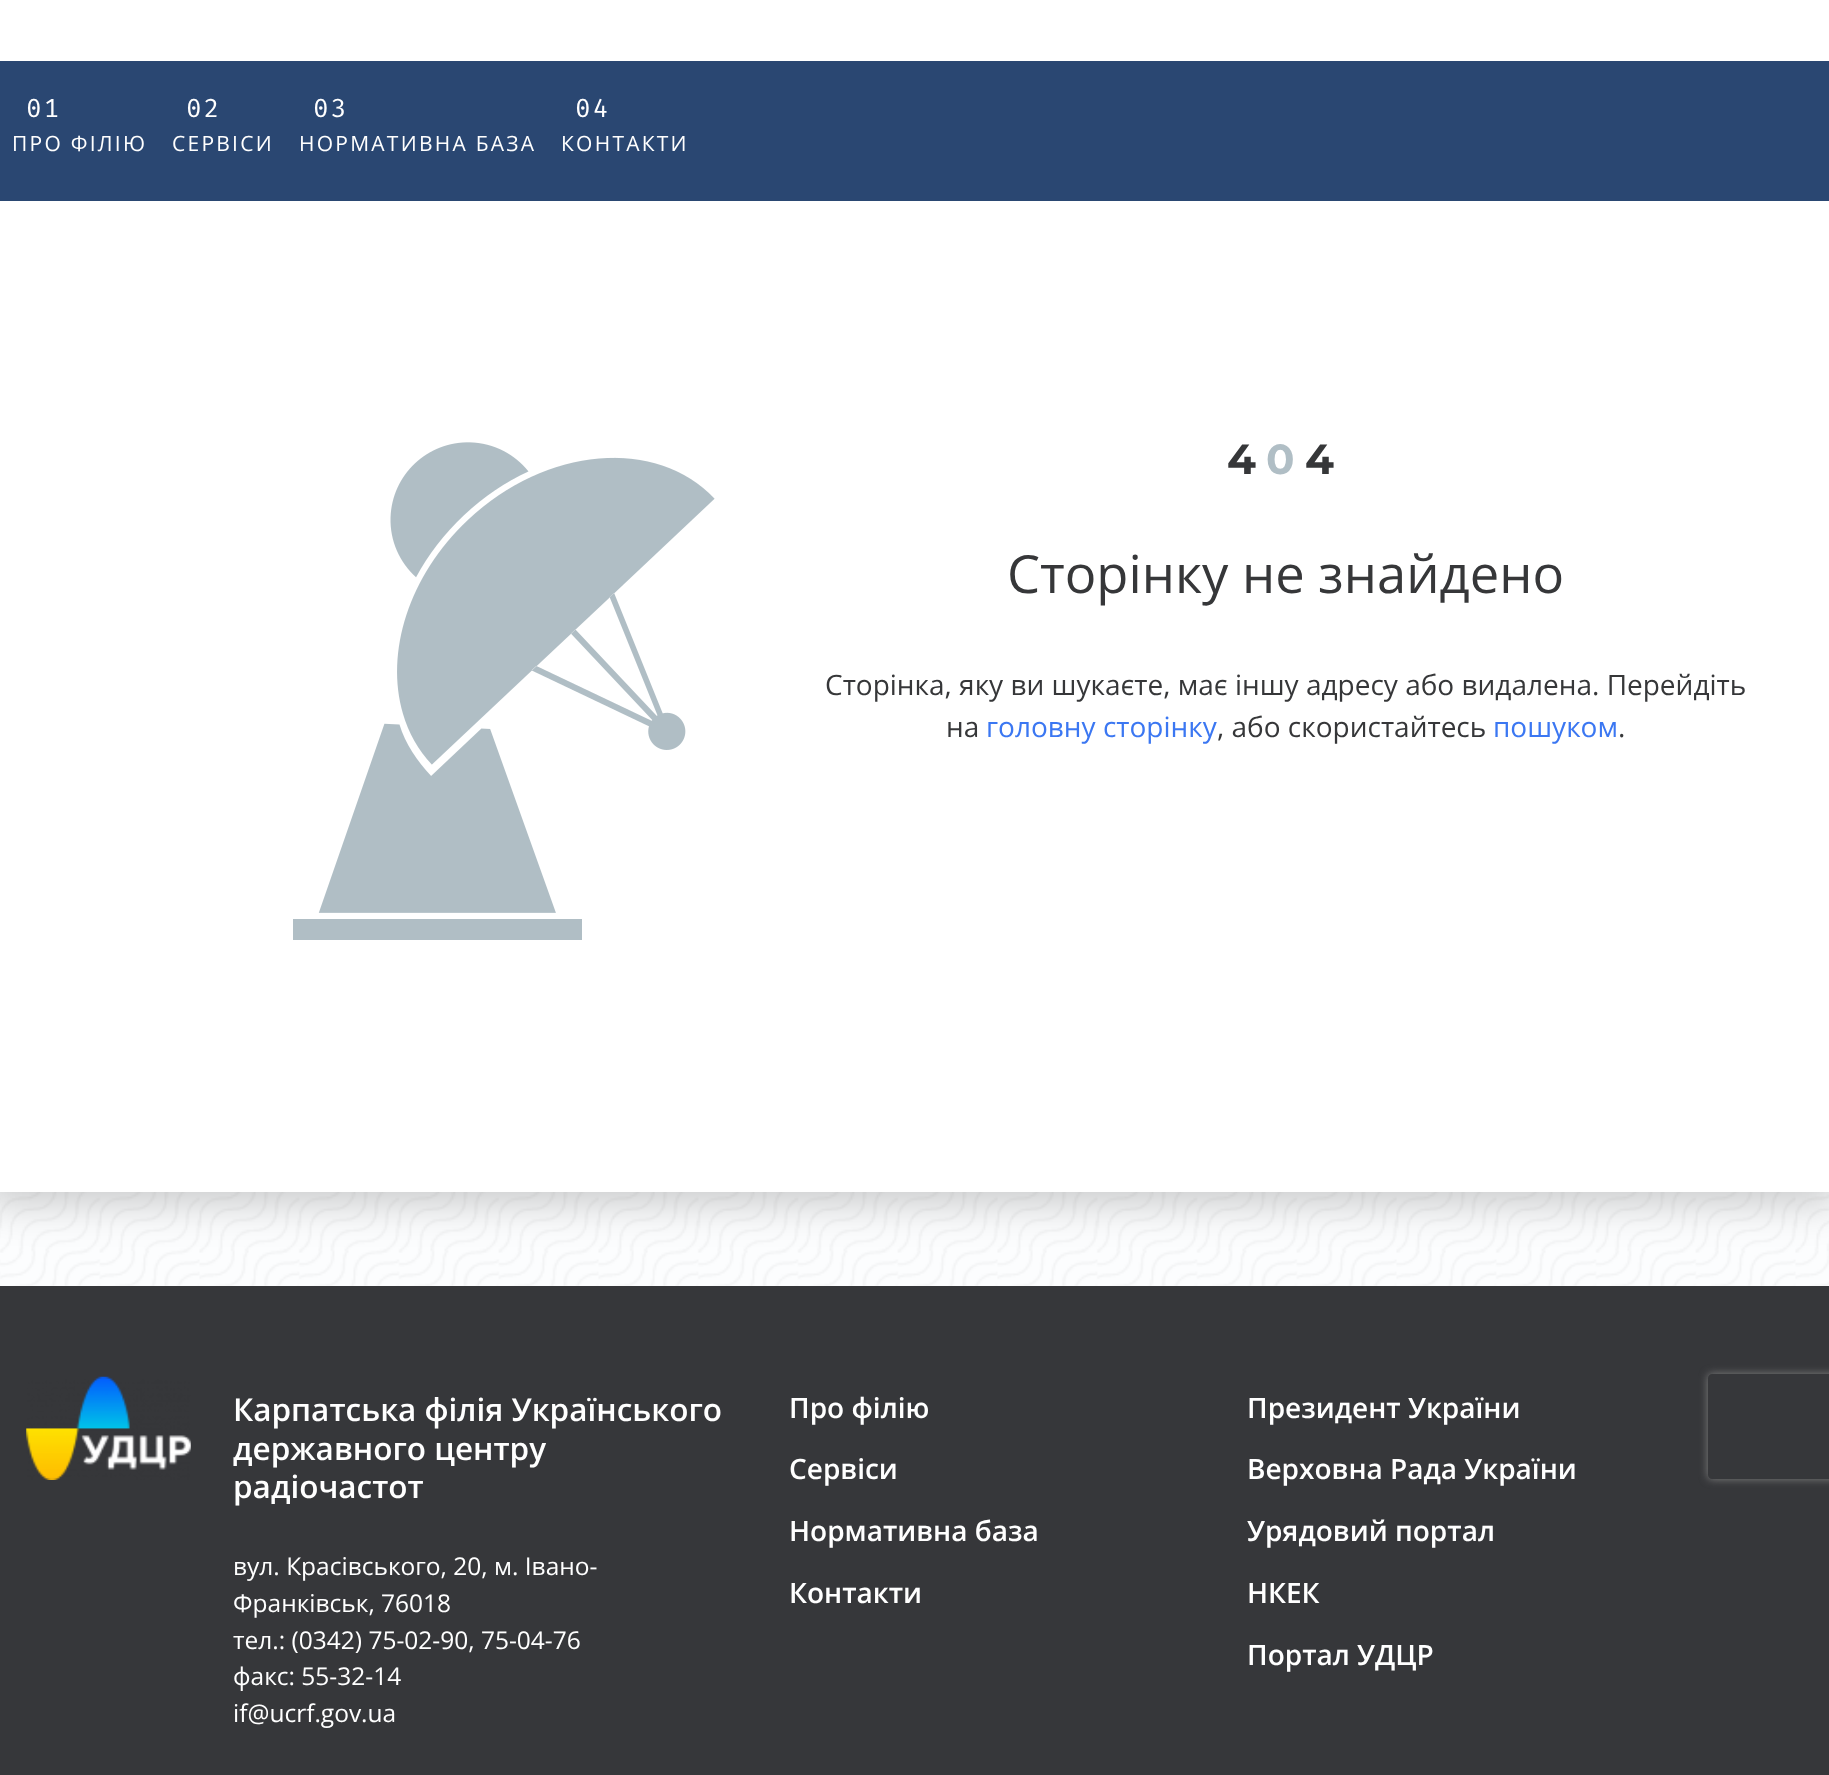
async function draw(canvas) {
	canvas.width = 1829;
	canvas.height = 1775;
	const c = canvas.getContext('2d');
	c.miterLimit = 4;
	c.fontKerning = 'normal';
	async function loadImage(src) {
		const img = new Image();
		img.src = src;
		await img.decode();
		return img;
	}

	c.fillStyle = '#fff';
	c.fillRect(0, 0, 1829, 1775);
	c.drawImage(await loadImage('img1.png'), 0, 1192, 1829, 94);
	c.fillStyle = '#00000033';
	c.filter = 'blur(20px)';
	c.beginPath();
	c.rect(-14, 193, 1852, 1011);
	c.fill();
	c.filter = 'none';
	c.fillStyle = '#2a4772';
	c.fillRect(0, 61, 1829, 140);
	c.letterSpacing = '2.25px';
	c.font = '26px Fira Mono';
	c.fillStyle = '#fff';
	c.fillText('01', 26, 117);
	c.font = '21px Open Sans';
	c.fillText('ПРО ФІЛІЮ', 12, 151);
	c.font = '26px Fira Mono';
	c.fillText('02', 186, 117);
	c.font = '21px Open Sans';
	c.fillText('СЕРВІСИ', 172, 151);
	c.font = '26px Fira Mono';
	c.fillText('03', 313, 117);
	c.font = '21px Open Sans';
	c.fillText('НОРМАТИВНА БАЗА', 299, 151);
	c.font = '26px Fira Mono';
	c.fillText('04', 575, 117);
	c.font = '21px Open Sans';
	c.fillText('КОНТАКТИ', 561, 151);
	c.fillRect(0, 201, 1829, 991);
	c.drawImage(await loadImage('img2.png'), 293, 442, 422, 498);
	c.letterSpacing = '10px';
	c.font = 'bold 42px Montserrat';
	c.fillStyle = '#363739';
	c.fillText('4', 1227, 474);
	c.fillStyle = '#b0bec5';
	c.fillText('0', 1266, 474);
	c.fillStyle = '#363739';
	c.fillText('4', 1305, 474);
	c.letterSpacing = '0px';
	c.font = '52.5px Open Sans';
	c.fillText('Сторінку не знайдено', 1007, 593);
	c.font = '28px Open Sans';
	c.fillText('Сторінка, яку ви шукаєте, має іншу адресу або видалена. Перейдіть', 825, 695);
	c.fillText('на', 946, 737);
	c.fillStyle = '#3b77f2';
	c.fillText('головну сторінку', 986, 737);
	c.fillStyle = '#363739';
	c.fillText(', або скористайтесь', 1217, 737);
	c.fillStyle = '#3b77f2';
	c.fillText('пошуком', 1493, 737);
	c.fillStyle = '#363739';
	c.fillText('.', 1618, 737);
	c.fillStyle = '#36373a';
	c.fillRect(0, 1286, 1829, 489);
	c.drawImage(await loadImage('img3.png'), 26, 1376, 165, 104);
	c.font = '600 31.5px Open Sans';
	c.fillStyle = '#fff';
	for (const [text, x, y] of [
		['Карпатська філія Українського', 233, 1421],
		['державного центру', 233, 1460],
		['радіочастот', 233, 1498],
	]) {
		c.fillText(text, x, y);
	}
	c.font = '24.5px Open Sans';
	for (const [text, x, y] of [
		['вул. Красівського, 20, м. Івано-', 233, 1575],
		['Франківськ, 76018', 233, 1612],
		['тел.: (0342) 75-02-90, 75-04-76', 233, 1649],
		['факс: 55-32-14', 233, 1685],
		['if@ucrf.gov.ua', 233, 1722],
	]) {
		c.fillText(text, x, y);
	}
	c.font = '600 28px Open Sans';
	for (const [text, x, y] of [
		['Про філію', 789, 1418],
		['Сервіси', 789, 1479],
		['Нормативна база', 789, 1541],
		['Контакти', 789, 1603],
		['Президент України', 1247, 1418],
		['Верховна Рада України', 1247, 1479],
		['Урядовий портал', 1247, 1541],
		['НКЕК', 1247, 1603],
		['Портал УДЦР', 1247, 1665],
	]) {
		c.fillText(text, x, y);
	}
	c.save();
	c.beginPath();
	c.moveTo(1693, 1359);
	c.lineTo(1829, 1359);
	c.lineTo(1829, 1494);
	c.lineTo(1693, 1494);
	c.closePath();
	c.moveTo(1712, 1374);
	c.lineTo(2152, 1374);
	c.bezierCurveTo(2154, 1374, 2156, 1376, 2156, 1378);
	c.lineTo(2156, 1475);
	c.bezierCurveTo(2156, 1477, 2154, 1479, 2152, 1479);
	c.lineTo(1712, 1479);
	c.bezierCurveTo(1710, 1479, 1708, 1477, 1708, 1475);
	c.lineTo(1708, 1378);
	c.bezierCurveTo(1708, 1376, 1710, 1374, 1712, 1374);
	c.closePath();
	c.clip('evenodd');
	c.fillStyle = '#808080';
	c.filter = 'blur(4.5px)';
	c.beginPath();
	c.roundRect(1708, 1374, 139, 105, 4);
	c.fill();
	c.filter = 'none';
	c.restore();
}

draw(document.querySelector('canvas'));
